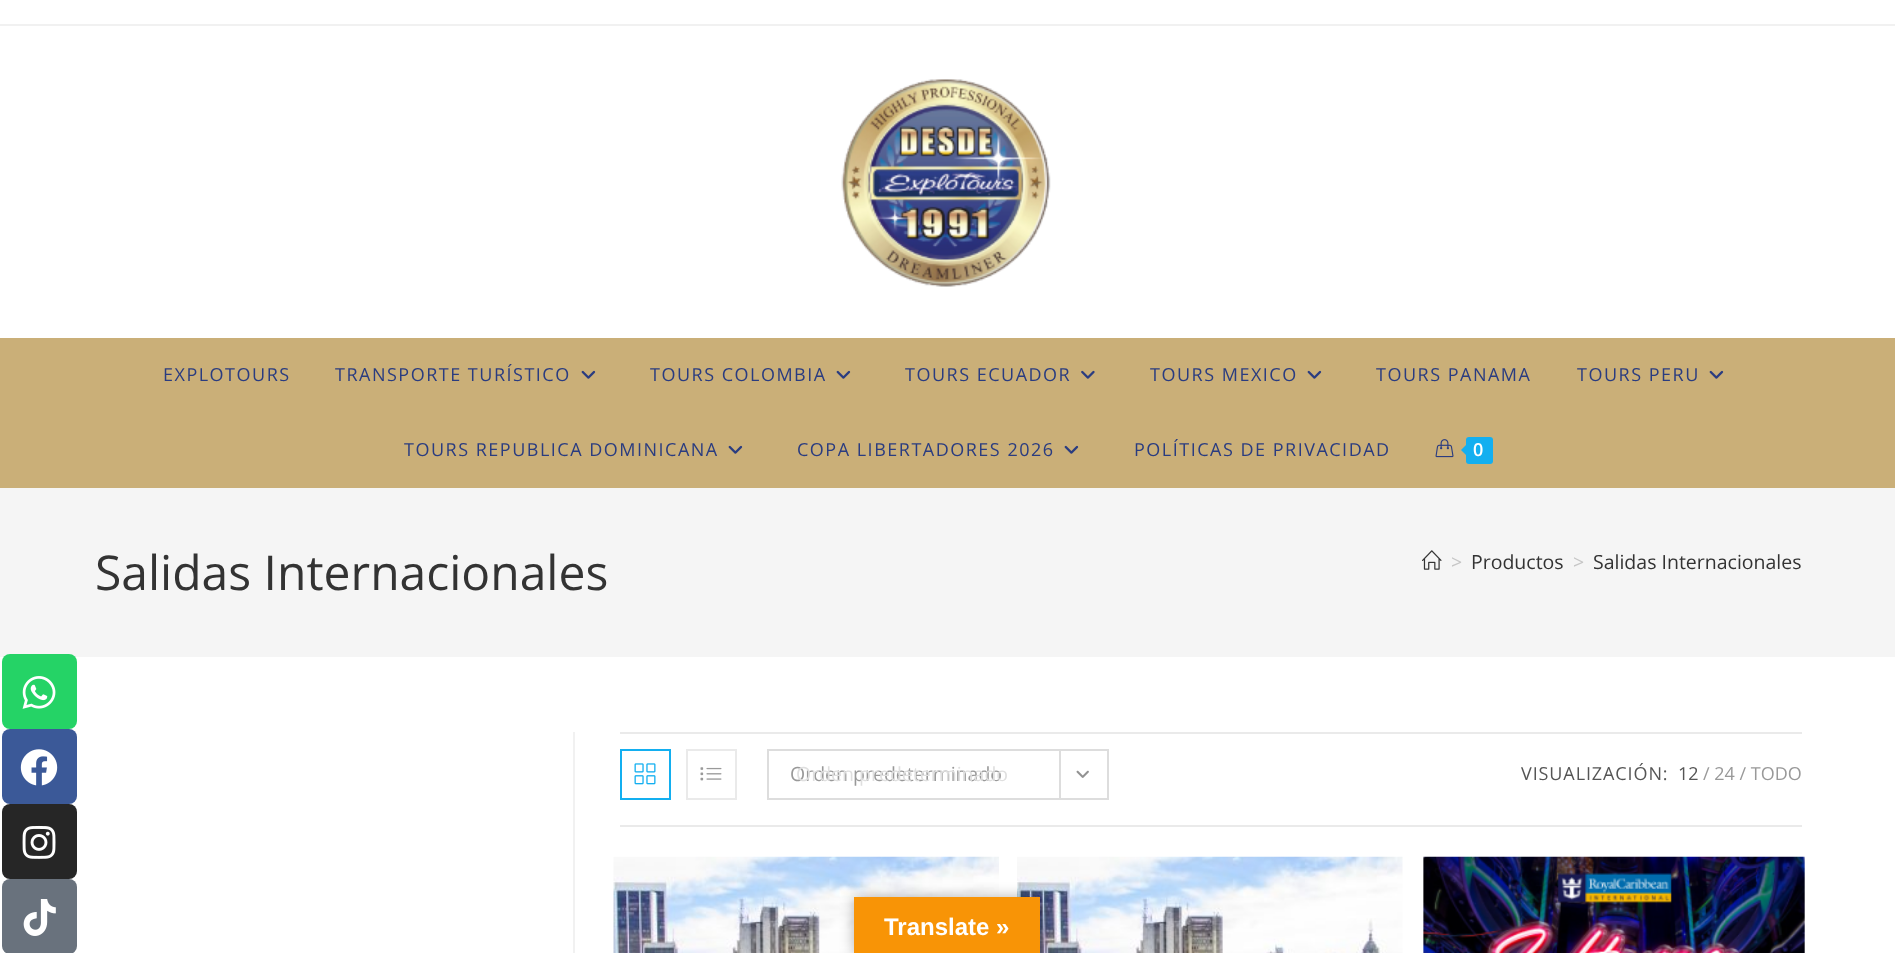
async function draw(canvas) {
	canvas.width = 1895;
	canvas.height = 953;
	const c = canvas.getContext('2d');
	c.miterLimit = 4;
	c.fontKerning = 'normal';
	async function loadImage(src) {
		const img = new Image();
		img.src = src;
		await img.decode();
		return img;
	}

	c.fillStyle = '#fff';
	c.fillRect(0, 0, 1895, 953);
	c.fillStyle = '#f1f1f1';
	c.fillRect(0, 24, 1895, 2);
	c.drawImage(await loadImage('img1.png'), 841, 79, 210, 208);
	c.fillStyle = '#caaf78';
	c.fillRect(0, 338, 1895, 150);
	c.letterSpacing = '1.5px';
	c.font = '18px Open Sans';
	c.fillStyle = '#2a3c80';
	c.fillText('EXPLOTOURS', 163, 381);
	c.fillText('TRANSPORTE TURÍSTICO', 335, 381);
	c.drawImage(await loadImage('img2.png'), 581, 370, 15, 9);
	c.fillText('TOURS COLOMBIA', 650, 381);
	c.drawImage(await loadImage('img2.png'), 836, 370, 15, 9);
	c.fillText('TOURS ECUADOR', 905, 381);
	c.drawImage(await loadImage('img3.png'), 1081, 370, 14, 9);
	c.fillText('TOURS MEXICO', 1150, 381);
	c.drawImage(await loadImage('img2.png'), 1307, 370, 15, 9);
	c.fillText('TOURS PANAMA', 1376, 381);
	c.fillText('TOURS PERU', 1577, 381);
	c.drawImage(await loadImage('img2.png'), 1709, 370, 15, 9);
	c.fillText('TOURS REPUBLICA DOMINICANA', 404, 456);
	c.drawImage(await loadImage('img2.png'), 728, 445, 15, 9);
	c.fillText('COPA LIBERTADORES 2026', 797, 456);
	c.drawImage(await loadImage('img2.png'), 1064, 445, 15, 9);
	c.fillText('POLÍTICAS DE PRIVACIDAD', 1134, 456);
	c.drawImage(await loadImage('img4.png'), 1435, 439, 19, 19);
	c.fillStyle = '#13aff0';
	c.beginPath();
	c.roundRect(1466, 437, 27, 27, 3);
	c.fill();
	c.beginPath();
	c.moveTo(1468.5, 442.5);
	c.lineTo(1468.5, 457.5);
	c.lineTo(1461, 450);
	c.closePath();
	c.fill();
	c.font = '600 18px Open Sans';
	c.fillStyle = '#fff';
	c.fillText('0', 1473, 456);
	c.fillStyle = '#f5f5f5';
	c.fillRect(0, 488, 1895, 169);
	c.fillStyle = '#25d366';
	c.beginPath();
	c.roundRect(2, 654, 75, 75, 8);
	c.fill();
	c.drawImage(await loadImage('img5.png'), 22, 676, 34, 33);
	c.fillStyle = '#3b5998';
	c.beginPath();
	c.roundRect(2, 729, 75, 75, 8);
	c.fill();
	c.drawImage(await loadImage('img6.png'), 20, 749, 38, 37);
	c.fillStyle = '#262626';
	c.beginPath();
	c.roundRect(2, 804, 75, 75, 8);
	c.fill();
	c.drawImage(await loadImage('img7.png'), 22, 825, 34, 34);
	c.fillStyle = '#69727d';
	c.beginPath();
	c.roundRect(2, 879, 75, 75, 8);
	c.fill();
	c.drawImage(await loadImage('img8.png'), 23, 899, 33, 37);
	c.letterSpacing = '0px';
	c.font = '48px Open Sans';
	c.fillStyle = '#333';
	c.fillText('Salidas Internacionales', 95, 590);
	c.drawImage(await loadImage('img9.png'), 1422, 550, 20, 20);
	c.font = '19.5px Open Sans';
	c.fillStyle = '#c6c6c6';
	c.fillText('>', 1451, 569);
	c.fillStyle = '#333';
	c.fillText('Productos', 1471, 569);
	c.fillStyle = '#c6c6c6';
	c.fillText('>', 1573, 569);
	c.fillStyle = '#333';
	c.fillText('Salidas Internacionales', 1593, 569);
	for (const [x, y, w, h, color] of [
		[573, 732, 2, 221, '#f1f1f1'],
		[620, 732, 1182, 2, '#eaeaea'],
		[620, 825, 1182, 2, '#eaeaea'],
	]) {
		c.fillStyle = color;
		c.fillRect(x, y, w, h);
	}
	c.strokeStyle = '#13aff0';
	c.lineWidth = 2;
	c.strokeRect(621, 750, 49, 49);
	c.drawImage(await loadImage('img10.png'), 634, 763, 22, 22);
	c.strokeStyle = '#eaeaea';
	c.strokeRect(687, 750, 49, 49);
	c.drawImage(await loadImage('img11.png'), 700, 767, 22, 14);
	c.strokeStyle = '#ddd';
	c.strokeRect(768, 750, 340, 49);
	c.fillStyle = '#999';
	c.fillText('Orden predeterminado', 790, 781);
	c.fillStyle = '#ddd';
	c.fillRect(1059, 750, 2, 48);
	c.drawImage(await loadImage('img12.png'), 1076, 770, 13, 8);
	c.fillStyle = '#dfdfdf';
	c.fillText('Orden predeterminado', 796, 781);
	c.letterSpacing = '0.9px';
	c.font = '18px Open Sans';
	c.fillStyle = '#555';
	c.fillText('VISUALIZACIÓN:', 1521, 780);
	c.letterSpacing = '0px';
	c.fillText('12', 1678, 780);
	c.fillStyle = '#999';
	c.fillText('/ 24 / TODO', 1703, 780);
	c.drawImage(await loadImage('img13.png'), 613, 856, 386, 97);
	c.drawImage(await loadImage('img14.png'), 1017, 856, 386, 97);
	c.drawImage(await loadImage('img15.png'), 1423, 856, 382, 97);
	c.fillStyle = '#0000004d';
	c.filter = 'blur(7px)';
	c.beginPath();
	c.rect(854, 897, 186, 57);
	c.fill();
	c.filter = 'none';
	c.fillStyle = '#f89406';
	c.fillRect(854, 897, 186, 56);
	c.font = 'bold 24px Liberation Sans';
	c.fillStyle = '#fff';
	c.fillText('Translate »', 884, 935);
}

draw(document.querySelector('canvas'));
